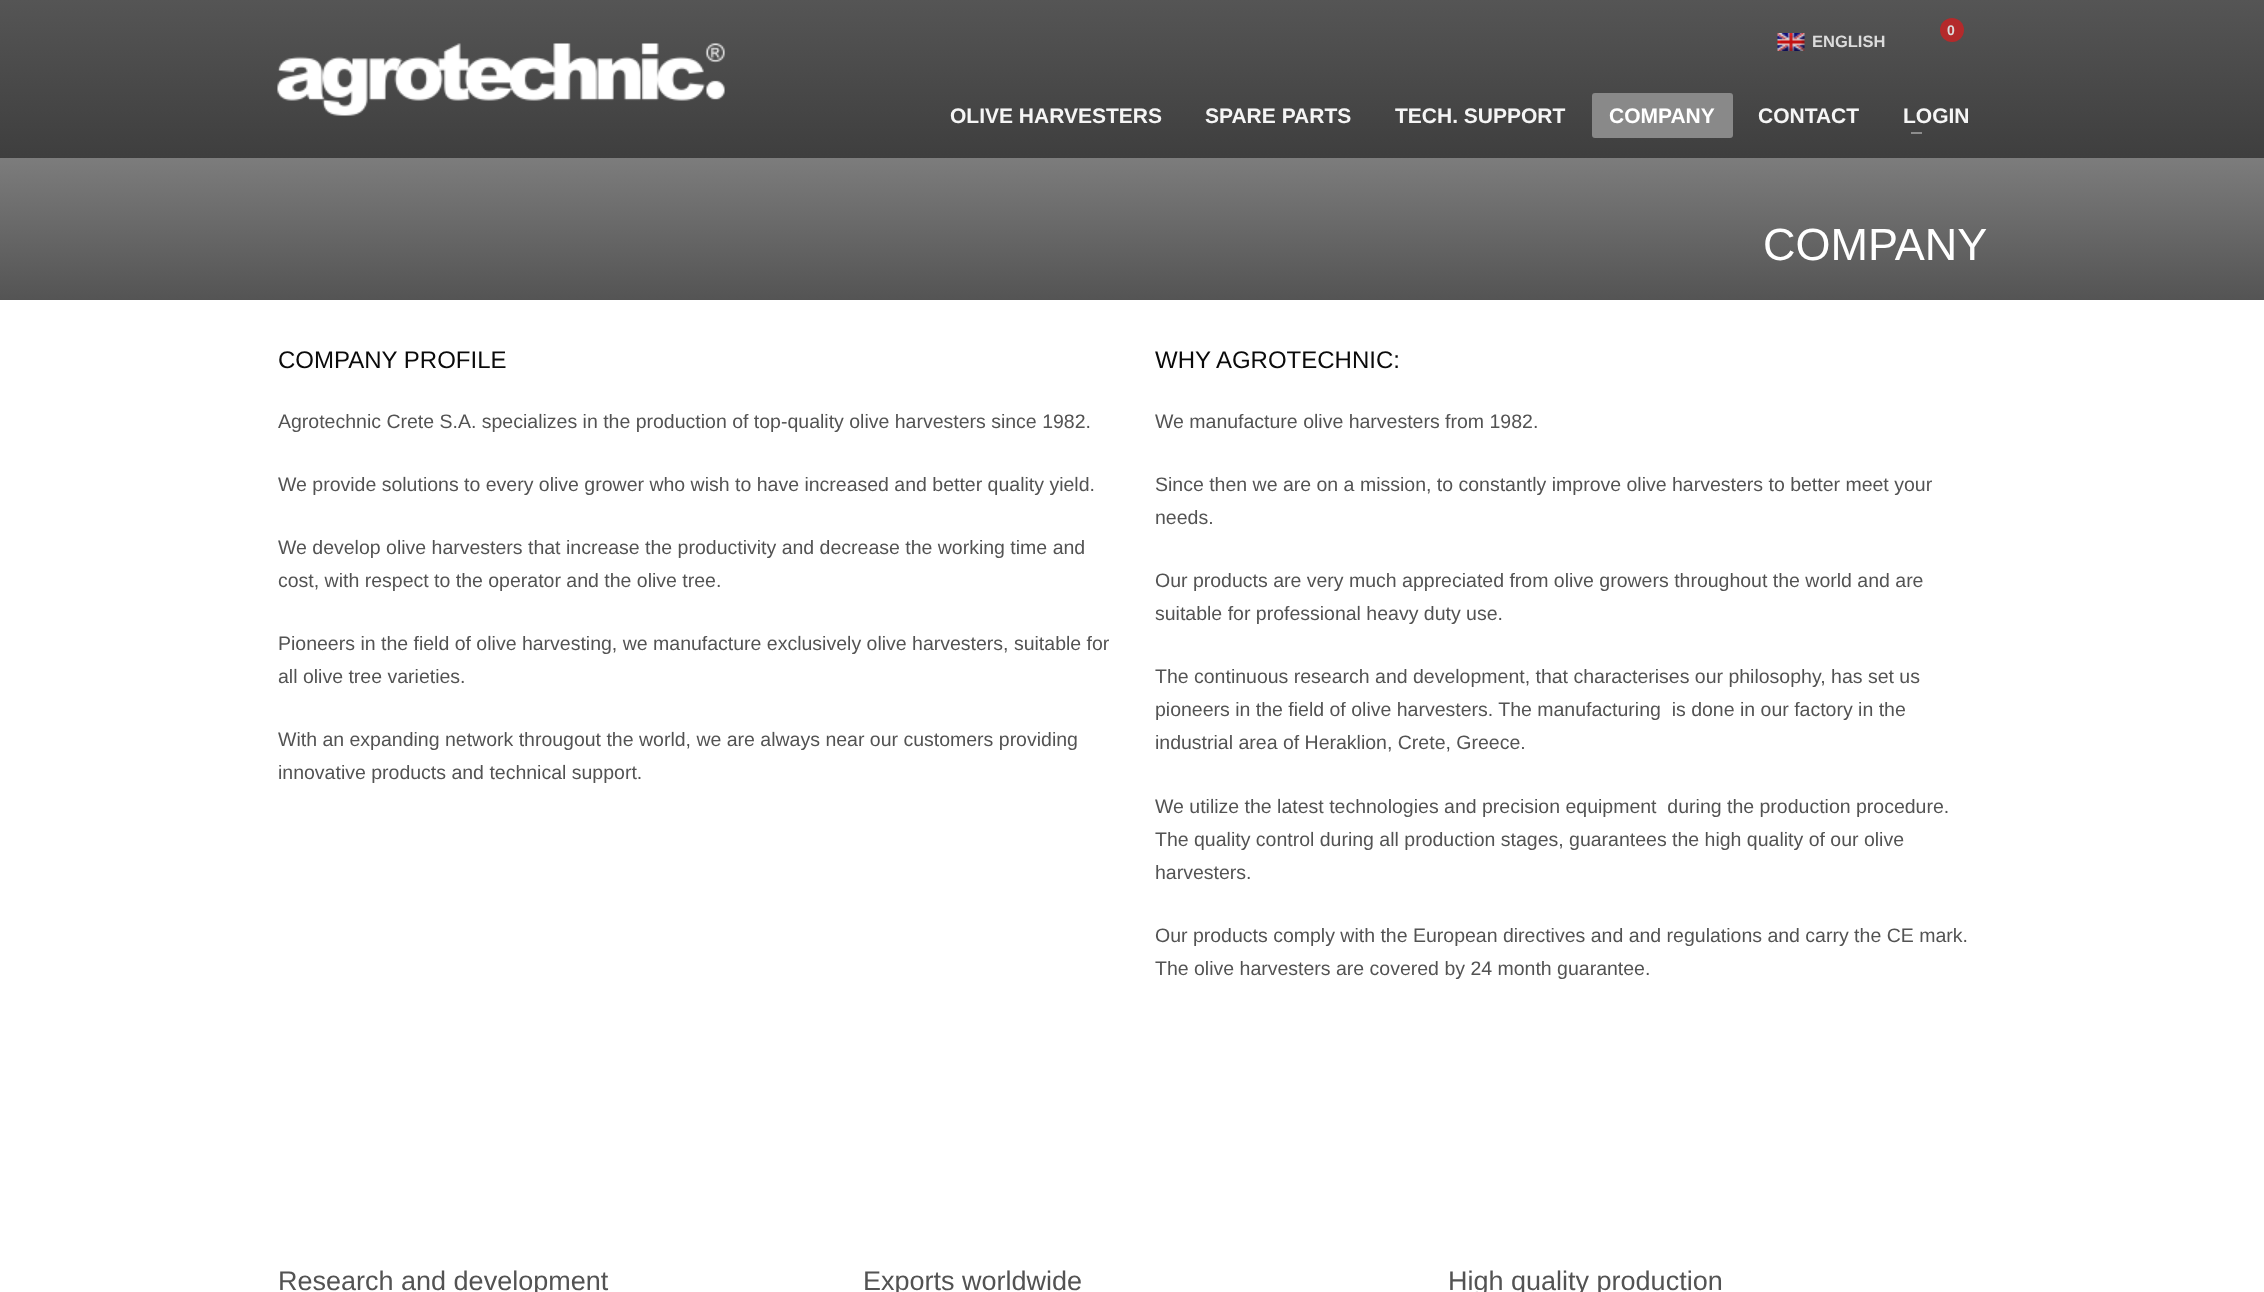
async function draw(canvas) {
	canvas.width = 2264;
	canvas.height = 1292;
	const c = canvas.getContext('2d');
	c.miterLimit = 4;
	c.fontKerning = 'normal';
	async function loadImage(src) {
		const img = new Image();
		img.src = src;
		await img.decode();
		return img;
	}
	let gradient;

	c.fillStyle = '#fff';
	c.fillRect(0, 0, 2264, 1292);
	gradient = c.createLinearGradient(1133, 0, 1133, 300);
	gradient.addColorStop(0, '#555');
	gradient.addColorStop(1, '#2a2a2a');
	c.fillStyle = gradient;
	c.fillRect(0, 0, 2264, 158);
	c.drawImage(await loadImage('img1.png'), 277, 43, 448, 73);
	c.fillStyle = '#cd2122cc';
	c.beginPath();
	c.arc(1952, 30, 12, 0, 2 * Math.PI);
	c.fill();
	c.font = 'bold 14px Liberation Sans';
	c.fillStyle = '#dcdcdc';
	c.fillText('0', 1947, 35);
	c.drawImage(await loadImage('img2.png'), 1777, 33, 28, 18);
	c.font = 'bold 16.5px Liberation Sans';
	c.fillText('ENGLISH', 1812, 47);
	c.font = 'bold 21px Liberation Sans';
	c.fillStyle = '#f5f5f5';
	for (const [text, x, y] of [
		['OLIVE HARVESTERS', 950, 123],
		['SPARE PARTS', 1205, 123],
		['TECH. SUPPORT', 1395, 123],
	]) {
		c.fillText(text, x, y);
	}
	c.fillStyle = '#898989';
	c.beginPath();
	c.roundRect(1592, 93, 141, 45, 3);
	c.fill();
	c.fillStyle = '#fff';
	c.fillText('COMPANY', 1609, 123);
	c.fillStyle = '#f5f5f5';
	c.fillText('CONTACT', 1758, 123);
	c.fillText('LOGIN', 1903, 123);
	c.fillStyle = '#8d8d8d';
	c.fillRect(1911, 132, 11, 2);
	gradient = c.createLinearGradient(1133, 0, 1133, 300);
	gradient.addColorStop(0, '#a9a9a9');
	gradient.addColorStop(1, '#545454');
	c.fillStyle = gradient;
	c.fillRect(0, 158, 2264, 142);
	c.font = '45px Liberation Sans';
	c.fillStyle = '#fff';
	c.fillText('COMPANY', 1763, 260);
	c.font = '24px Liberation Sans';
	c.fillStyle = '#0a0a0a';
	c.fillText('COMPANY PROFILE', 278, 368);
	c.font = '19.5px Liberation Sans';
	c.fillStyle = '#535353';
	for (const [text, x, y] of [
		['Agrotechnic Crete S.A. specializes in the production of top-quality olive harvesters since 1982.', 278, 428],
		['We provide solutions to every olive grower who wish to have increased and better quality yield.', 278, 491],
		['We develop olive harvesters that increase the productivity and decrease the working time and', 278, 554],
		['cost, with respect to the operator and the olive tree.', 278, 587],
		['Pioneers in the field of olive harvesting, we manufacture exclusively olive harvesters, suitable for', 278, 650],
		['all olive tree varieties.', 278, 683],
		['With an expanding network througout the world, we are always near our customers providing', 278, 746],
		['innovative products and technical support.', 278, 779],
	]) {
		c.fillText(text, x, y);
	}
	c.font = '24px Liberation Sans';
	c.fillStyle = '#0a0a0a';
	c.fillText('WHY AGROTECHNIC:', 1155, 368);
	c.font = '19.5px Liberation Sans';
	c.fillStyle = '#535353';
	for (const [text, x, y] of [
		['We manufacture olive harvesters from 1982.', 1155, 428],
		['Since then we are on a mission, to constantly improve olive harvesters to better meet your', 1155, 491],
		['needs.', 1155, 524],
		['Our products are very much appreciated from olive growers throughout the world and are', 1155, 587],
		['suitable for professional heavy duty use.', 1155, 620],
		['The continuous research and development, that characterises our philosophy, has set us', 1155, 683],
		['pioneers in the field of olive harvesters. The manufacturing  is done in our factory in the', 1155, 716],
		['industrial area of Heraklion, Crete, Greece.', 1155, 749],
		['We utilize the latest technologies and precision equipment  during the production procedure.', 1155, 813],
		['The quality control during all production stages, guarantees the high quality of our olive', 1155, 846],
		['harvesters.', 1155, 879],
		['Our products comply with the European directives and and regulations and carry the CE mark.', 1155, 942],
		['The olive harvesters are covered by 24 month guarantee.', 1155, 975],
	]) {
		c.fillText(text, x, y);
	}
	c.font = '27px Liberation Sans';
	for (const [text, x, y] of [
		['Research and development', 278, 1290],
		['Exports worldwide', 863, 1290],
		['High quality production', 1448, 1290],
	]) {
		c.fillText(text, x, y);
	}
}

draw(document.querySelector('canvas'));
